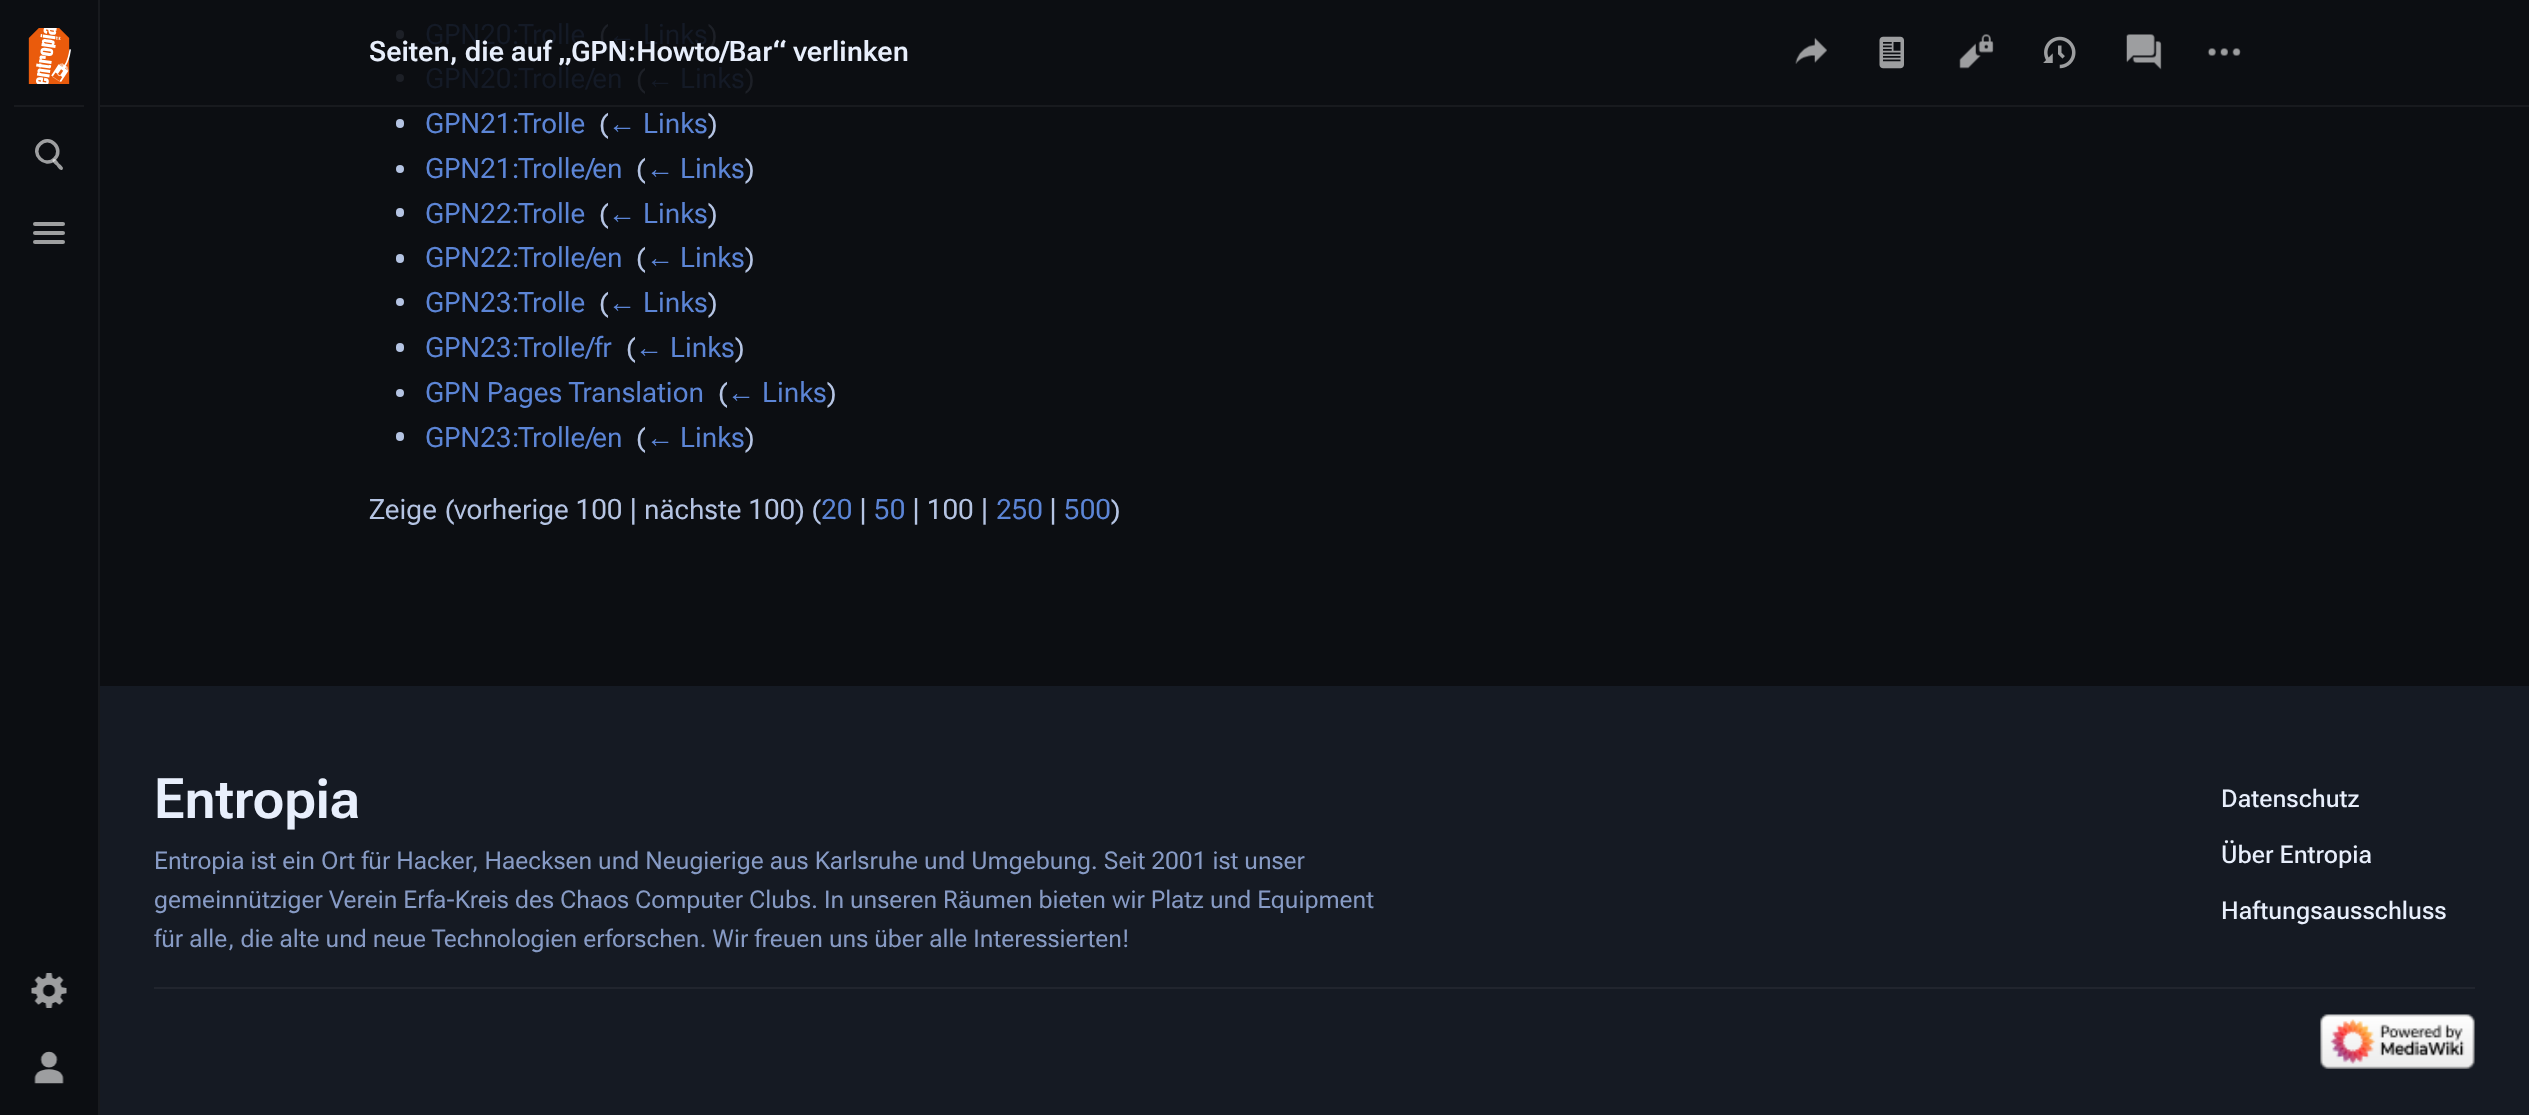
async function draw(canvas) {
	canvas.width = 2529;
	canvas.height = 1115;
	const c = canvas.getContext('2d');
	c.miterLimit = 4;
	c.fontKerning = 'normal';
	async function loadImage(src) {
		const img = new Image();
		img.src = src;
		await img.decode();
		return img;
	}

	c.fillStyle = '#0c0e12';
	c.fillRect(0, 0, 2529, 1115);
	c.fillStyle = '#1d2027';
	c.beginPath();
	c.roundRect(396, 30, 8, 9, 4);
	c.fill();
	c.beginPath();
	c.arc(400, 78, 4, 0, 2 * Math.PI);
	c.fill();
	c.strokeStyle = '#181a1e';
	c.lineWidth = 2;
	c.strokeRect(97, -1, 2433, 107);
	for (const [x, y, w, h, color] of [
		[96, 0, 2, 107, '#0c0e12'],
		[98, 0, 2, 1115, '#181a1e'],
		[14, 105, 70, 2, '#181a1e'],
	]) {
		c.fillStyle = color;
		c.fillRect(x, y, w, h);
	}
	c.drawImage(await loadImage('img1.png'), 28, 28, 43, 56);
	c.fillStyle = '#9e9fa0';
	c.beginPath();
	c.moveTo(53, 159.5);
	c.bezierCurveTo(55, 157.5, 58, 162, 59, 163.5);
	c.bezierCurveTo(60, 164.5, 64.5, 167.5, 62.5, 169.5);
	c.bezierCurveTo(60.5, 171.5, 57.5, 167, 56.5, 165.5);
	c.bezierCurveTo(55.5, 164.5, 51, 161.5, 53, 159.5);
	c.closePath();
	c.fill();
	c.beginPath();
	c.moveTo(40, 144);
	c.bezierCurveTo(49.5, 134, 64.5, 149, 54.5, 159);
	c.bezierCurveTo(45, 168.5, 30, 153.5, 40, 144);
	c.closePath();
	c.strokeStyle = '#ffffff99';
	c.lineWidth = 3.5;
	c.stroke();
	c.beginPath();
	c.roundRect(33, 222, 32, 4, 2);
	c.fill();
	c.beginPath();
	c.roundRect(33, 231, 32, 4, 2);
	c.fill();
	c.beginPath();
	c.roundRect(33, 240, 32, 4, 2);
	c.fill();
	c.drawImage(await loadImage('img2.png'), 31, 973, 36, 35);
	c.drawImage(await loadImage('img3.png'), 34, 1051, 30, 33);
	c.font = '28px Roboto Flex';
	c.fillStyle = '#141a26';
	c.fillText('GPN20:Trolle', 425, 44);
	c.fillStyle = '#1d2027';
	c.fillText('(', 599, 44);
	c.font = '28px Liberation Sans';
	c.fillStyle = '#141a26';
	c.fillText('←', 608, 44);
	c.font = '28px Roboto Flex';
	c.fillText('Links', 643, 44);
	c.fillStyle = '#1d2027';
	c.fillText(')', 708, 44);
	c.fillStyle = '#141a26';
	c.fillText('GPN20:Trolle/en', 425, 88);
	c.fillStyle = '#1d2027';
	c.fillText('(', 636, 88);
	c.fillStyle = '#141a26';
	c.fillText('Links', 680, 88);
	c.fillStyle = '#1d2027';
	c.fillText(')', 745, 88);
	c.font = '28px Liberation Sans';
	c.fillStyle = '#141a26';
	c.fillText('←', 646, 88);
	c.fillStyle = '#b5c4e3';
	c.beginPath();
	c.roundRect(396, 119, 8, 9, 4);
	c.fill();
	c.font = '28px Roboto Flex';
	c.fillStyle = '#5c85d6';
	c.fillText('GPN21:Trolle', 425, 133);
	c.fillStyle = '#b5c4e3';
	c.fillText('(', 599, 133);
	c.font = '28px Liberation Sans';
	c.fillStyle = '#5c85d6';
	c.fillText('←', 608, 133);
	c.font = '28px Roboto Flex';
	c.fillText('Links', 643, 133);
	c.fillStyle = '#b5c4e3';
	c.fillText(')', 708, 133);
	c.beginPath();
	c.arc(400, 169, 4, 0, 2 * Math.PI);
	c.fill();
	c.fillStyle = '#5c85d6';
	c.fillText('GPN21:Trolle/en', 425, 178);
	c.fillStyle = '#b5c4e3';
	c.fillText('(', 636, 178);
	c.font = '28px Liberation Sans';
	c.fillStyle = '#5c85d6';
	c.fillText('←', 646, 178);
	c.font = '28px Roboto Flex';
	c.fillText('Links', 680, 178);
	c.fillStyle = '#b5c4e3';
	c.fillText(')', 745, 178);
	c.beginPath();
	c.roundRect(396, 208, 8, 9, 4);
	c.fill();
	c.fillStyle = '#5c85d6';
	c.fillText('GPN22:Trolle', 425, 223);
	c.fillStyle = '#b5c4e3';
	c.fillText('(', 599, 223);
	c.fillStyle = '#5c85d6';
	c.fillText('Links', 643, 223);
	c.fillStyle = '#b5c4e3';
	c.fillText(')', 708, 223);
	c.font = '28px Liberation Sans';
	c.fillStyle = '#5c85d6';
	c.fillText('←', 608, 223);
	c.fillStyle = '#b5c4e3';
	c.beginPath();
	c.roundRect(396, 254, 8, 9, 4);
	c.fill();
	c.font = '28px Roboto Flex';
	c.fillStyle = '#5c85d6';
	c.fillText('GPN22:Trolle/en', 425, 267);
	c.fillStyle = '#b5c4e3';
	c.fillText('(', 636, 267);
	c.font = '28px Liberation Sans';
	c.fillStyle = '#5c85d6';
	c.fillText('←', 646, 267);
	c.font = '28px Roboto Flex';
	c.fillText('Links', 680, 267);
	c.fillStyle = '#b5c4e3';
	c.fillText(')', 745, 267);
	c.beginPath();
	c.arc(400, 302, 4, 0, 2 * Math.PI);
	c.fill();
	c.fillStyle = '#5c85d6';
	c.fillText('GPN23:Trolle', 425, 312);
	c.fillStyle = '#b5c4e3';
	c.fillText('(', 599, 312);
	c.fillStyle = '#5c85d6';
	c.fillText('Links', 643, 312);
	c.fillStyle = '#b5c4e3';
	c.fillText(')', 708, 312);
	c.font = '28px Liberation Sans';
	c.fillStyle = '#5c85d6';
	c.fillText('←', 608, 312);
	c.fillStyle = '#b5c4e3';
	c.beginPath();
	c.roundRect(396, 343, 8, 9, 4);
	c.fill();
	c.font = '28px Roboto Flex';
	c.fillStyle = '#5c85d6';
	c.fillText('GPN23:Trolle/fr', 425, 357);
	c.fillStyle = '#b5c4e3';
	c.fillText('(', 626, 357);
	c.font = '28px Liberation Sans';
	c.fillStyle = '#5c85d6';
	c.fillText('←', 635, 357);
	c.font = '28px Roboto Flex';
	c.fillText('Links', 670, 357);
	c.fillStyle = '#b5c4e3';
	c.fillText(')', 735, 357);
	c.beginPath();
	c.arc(400, 393, 4, 0, 2 * Math.PI);
	c.fill();
	c.fillStyle = '#5c85d6';
	c.fillText('GPN Pages Translation', 425, 402);
	c.fillStyle = '#b5c4e3';
	c.fillText('(', 718, 402);
	c.font = '28px Liberation Sans';
	c.fillStyle = '#5c85d6';
	c.fillText('←', 727, 402);
	c.font = '28px Roboto Flex';
	c.fillText('Links', 762, 402);
	c.fillStyle = '#b5c4e3';
	c.fillText(')', 827, 402);
	c.beginPath();
	c.roundRect(396, 432, 8, 9, 4);
	c.fill();
	c.fillStyle = '#5c85d6';
	c.fillText('GPN23:Trolle/en', 425, 447);
	c.fillStyle = '#b5c4e3';
	c.fillText('(', 636, 447);
	c.fillStyle = '#5c85d6';
	c.fillText('Links', 680, 447);
	c.fillStyle = '#b5c4e3';
	c.fillText(')', 745, 447);
	c.font = '28px Liberation Sans';
	c.fillStyle = '#5c85d6';
	c.fillText('←', 646, 447);
	c.wordSpacing = '1px';
	c.font = '28px Roboto Flex';
	c.fillStyle = '#b5c4e3';
	c.fillText('Zeige (', 369, 519);
	c.wordSpacing = '0px';
	c.fillText('vorherige 100 | nächste 100) (', 454, 519);
	c.fillStyle = '#5c85d6';
	c.fillText('20', 821, 519);
	c.fillStyle = '#b5c4e3';
	c.fillText('|', 859, 519);
	c.fillStyle = '#5c85d6';
	c.fillText('50', 874, 519);
	c.fillStyle = '#b5c4e3';
	c.fillText('| 100 |', 912, 519);
	c.fillStyle = '#5c85d6';
	c.fillText('250', 996, 519);
	c.fillStyle = '#b5c4e3';
	c.fillText('|', 1049, 519);
	c.fillStyle = '#5c85d6';
	c.fillText('500', 1064, 519);
	c.fillStyle = '#b5c4e3';
	c.fillText(')', 1111, 519);
	c.font = '600 28px "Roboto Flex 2"';
	c.fillStyle = '#e8effc';
	c.fillText('Seiten, die auf „GPN:Howto/Bar“ verlinken', 369, 61);
	c.drawImage(await loadImage('img4.png'), 1795, 37, 32, 27);
	c.drawImage(await loadImage('img5.png'), 1879, 36, 25, 33);
	c.drawImage(await loadImage('img6.png'), 1959, 34, 35, 35);
	c.drawImage(await loadImage('img7.png'), 2043, 36, 33, 33);
	c.drawImage(await loadImage('img8.png'), 2126, 34, 36, 36);
	c.drawImage(await loadImage('img9.png'), 2207, 48, 34, 8);
	c.fillStyle = '#151a23';
	c.fillRect(100, 686, 2429, 429);
	c.font = '600 56px Roboto Flex';
	c.fillStyle = '#e8effc';
	c.fillText('Entropia', 154, 818);
	c.font = '24.5px "Roboto Flex 2"';
	c.fillStyle = '#879bc5';
	for (const [text, x, y] of [
		['Entropia ist ein Ort für Hacker, Haecksen und Neugierige aus Karlsruhe und Umgebung. Seit 2001 ist unser', 154, 869],
		['gemeinnütziger Verein Erfa-Kreis des Chaos Computer Clubs. In unseren Räumen bieten wir Platz und Equipment', 154, 908],
		['für alle, die alte und neue Technologien erforschen. Wir freuen uns über alle Interessierten!', 154, 947],
	]) {
		c.fillText(text, x, y);
	}
	c.font = '500 24.5px Roboto Flex';
	c.fillStyle = '#e8effc';
	for (const [text, x, y] of [
		['Datenschutz', 2221, 807],
		['Über Entropia', 2221, 863],
		['Haftungsausschluss', 2221, 919],
	]) {
		c.fillText(text, x, y);
	}
	c.fillStyle = '#21252e';
	c.fillRect(154, 987, 2321, 2);
	c.drawImage(await loadImage('img10.png'), 2320, 1014, 155, 55);
}

draw(document.querySelector('canvas'));
